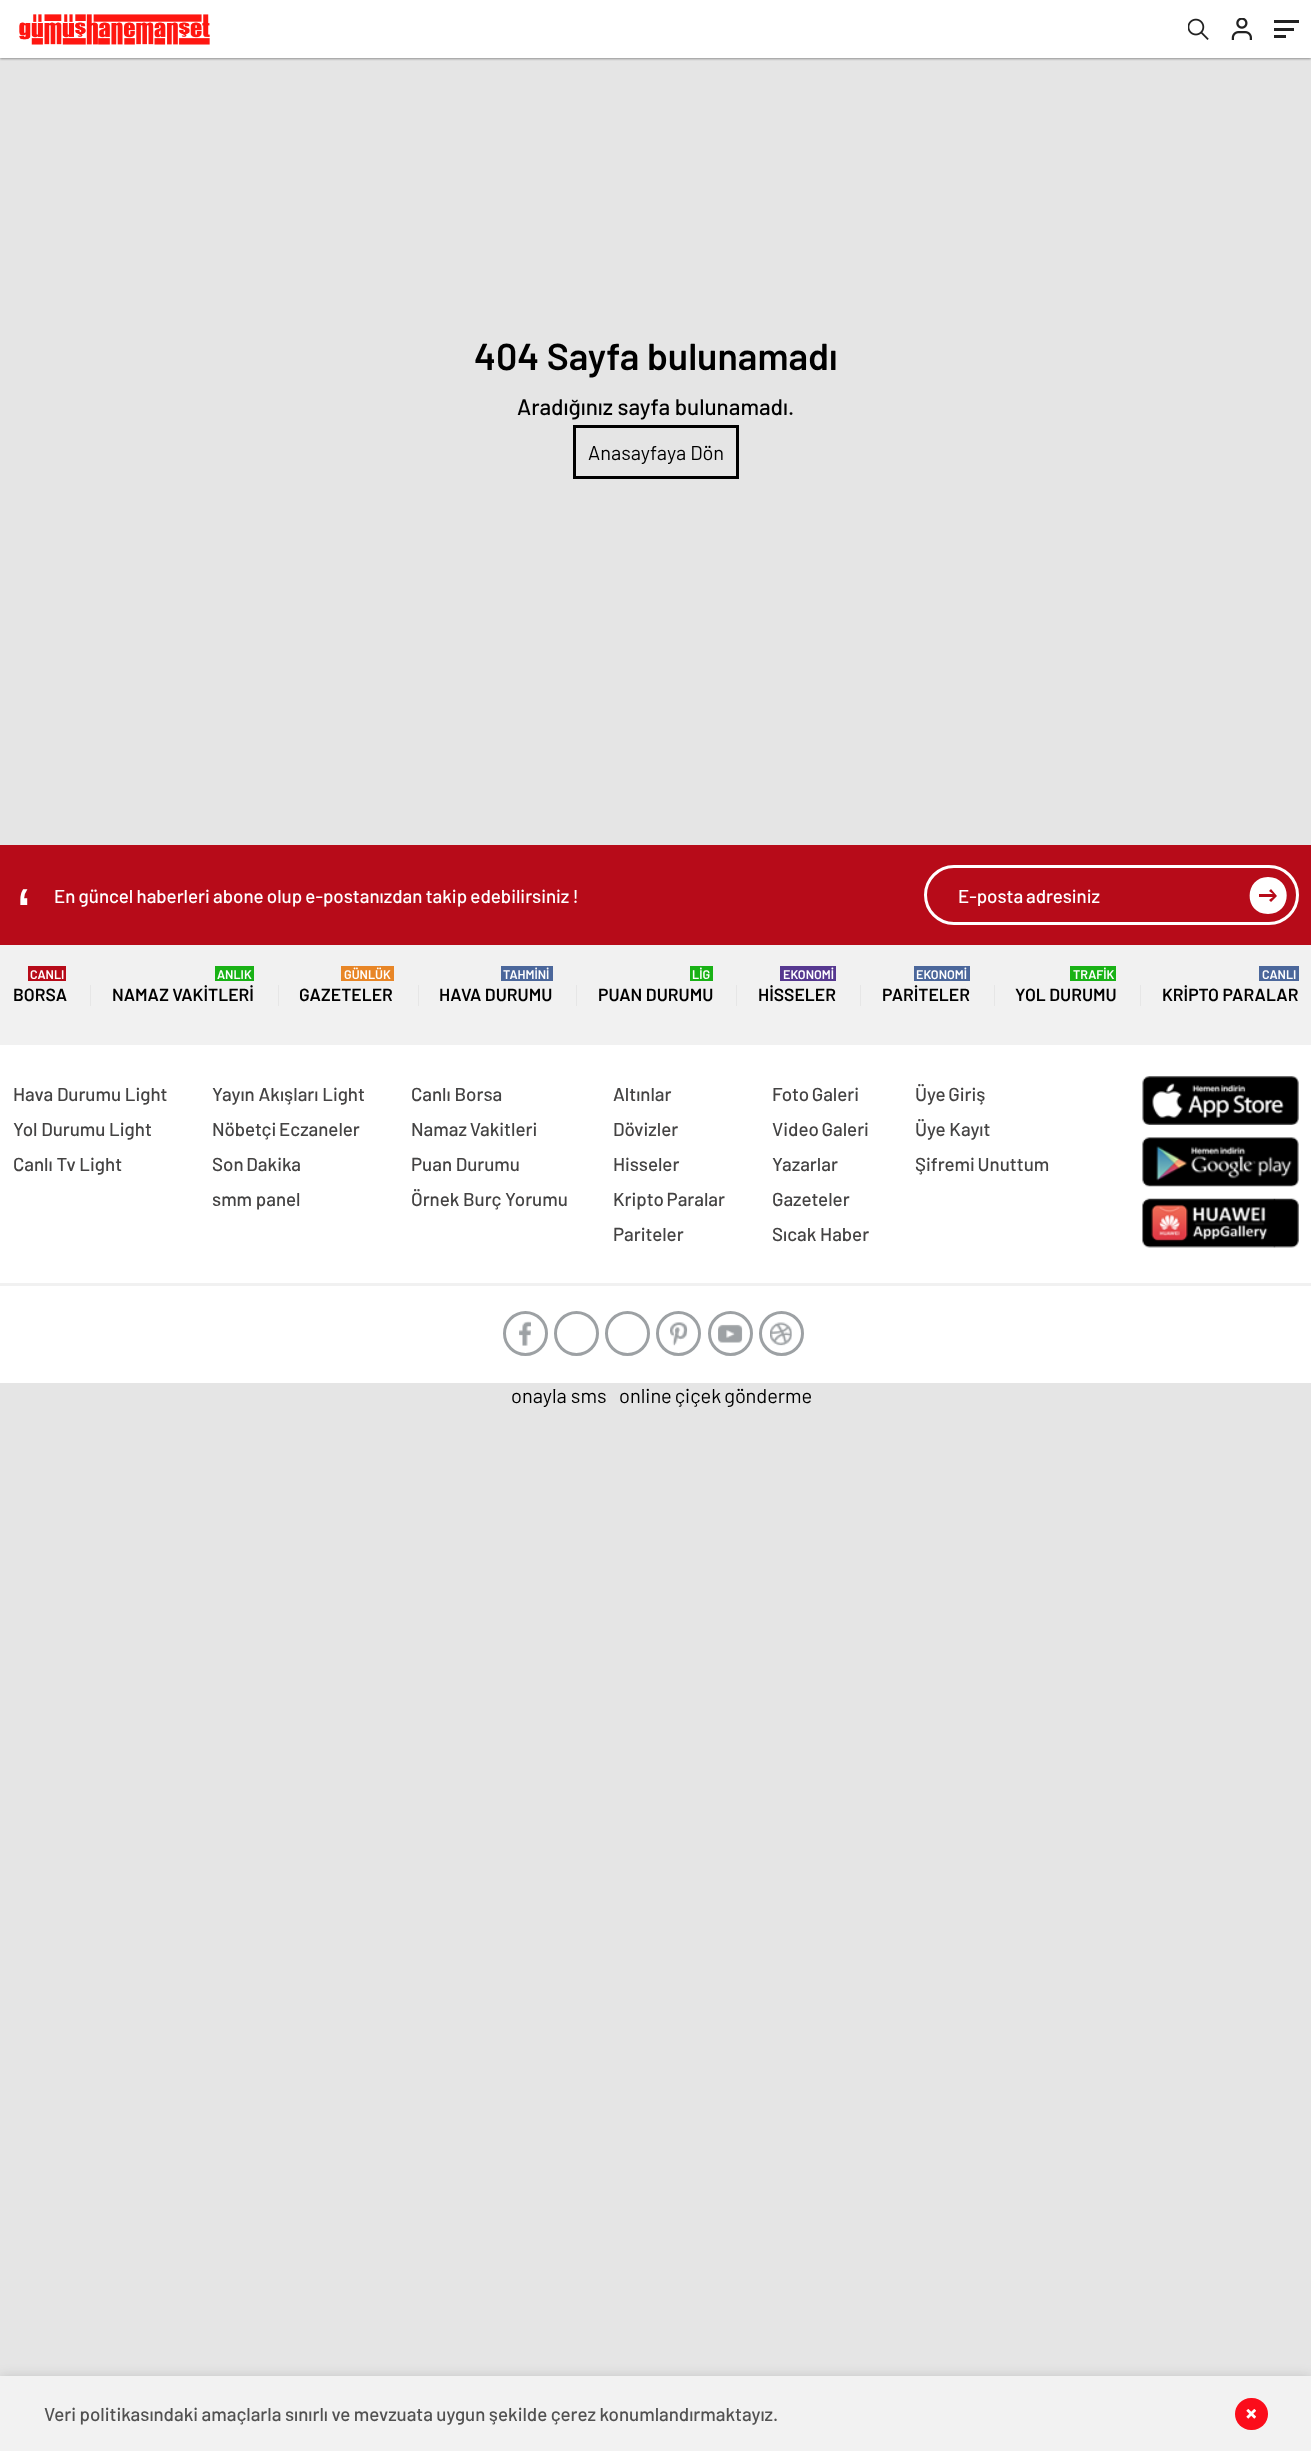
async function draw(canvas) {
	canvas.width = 1311;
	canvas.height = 2451;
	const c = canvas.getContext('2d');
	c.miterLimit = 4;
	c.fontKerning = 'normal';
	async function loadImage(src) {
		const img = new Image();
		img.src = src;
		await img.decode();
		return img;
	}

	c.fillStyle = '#e5e5e5';
	c.fillRect(0, 0, 1311, 2451);
	c.fillStyle = '#0000005e';
	c.filter = 'blur(1px)';
	c.beginPath();
	c.rect(0, 1, 1311, 58);
	c.fill();
	c.filter = 'none';
	c.fillStyle = '#fff';
	c.fillRect(0, 0, 1311, 58);
	c.drawImage(await loadImage('img1.png'), 19, 14, 191, 31);
	c.drawImage(await loadImage('img2.png'), 1188, 18, 21, 22);
	c.drawImage(await loadImage('img3.png'), 1231, 18, 21, 22);
	for (const [x, y, w, h, color] of [
		[1274, 20, 25, 3, '#222'],
		[1274, 28, 20, 3, '#222'],
		[1274, 35, 12, 3, '#222'],
	]) {
		c.fillStyle = color;
		c.fillRect(x, y, w, h);
	}
	c.font = '600 37.5px Barlow';
	c.fillStyle = '#000';
	c.fillText('404 Sayfa bulunamadı', 474, 370);
	c.font = '500 22.5px Barlow';
	c.fillText('Aradığınız sayfa bulunamadı.', 517, 415);
	c.strokeStyle = '#000';
	c.lineWidth = 3;
	c.strokeRect(574.5, 426.5, 163, 51);
	c.font = '20px Barlow';
	c.fillText('Anasayfaya Dön', 588, 460);
	c.fillStyle = '#fff';
	c.fillRect(0, 1045, 1311, 338);
	c.fillStyle = '#b70b19';
	c.fillRect(0, 845, 1311, 100);
	c.font = '71px Liberation Sans';
	c.fillStyle = '#fff';
	c.fillText('‘', 16, 938);
	c.wordSpacing = '-0.5px';
	c.font = '500 18.75px Barlow';
	c.fillText('En güncel haberleri abone olup e-postanızdan takip edebilirsiniz !', 54, 903);
	c.beginPath();
	c.roundRect(925.5, 866.5, 372, 57, 28.5);
	c.strokeStyle = '#fff';
	c.stroke();
	c.save();
	c.beginPath();
	c.rect(958, 884, 282, 22);
	c.clip();
	c.wordSpacing = '-1px';
	c.fillText('E-posta adresiniz', 958, 903);
	c.restore();
	c.beginPath();
	c.moveTo(1268, 914);
	c.bezierCurveTo(1243, 914, 1244, 877, 1268, 877);
	c.bezierCurveTo(1293, 877, 1293, 914, 1268, 914);
	c.closePath();
	c.moveTo(1259, 894);
	c.lineTo(1259, 897);
	c.lineTo(1273, 897);
	c.lineTo(1269, 900);
	c.lineTo(1271, 902);
	c.lineTo(1277, 896);
	c.lineTo(1271, 889);
	c.lineTo(1269, 891);
	c.lineTo(1273, 894);
	c.closePath();
	c.fill();
	c.fillStyle = '#f1f1f1';
	c.fillRect(0, 945, 1311, 100);
	c.fillStyle = '#b70b19';
	c.fillRect(28, 966, 38, 15);
	c.wordSpacing = '0px';
	c.font = '600 12.5px Barlow';
	c.fillStyle = '#fff';
	c.fillText('CANLI', 30, 979);
	c.font = '600 17.5px Barlow';
	c.fillStyle = '#000';
	c.fillText('BORSA', 13, 1001);
	c.fillStyle = '#e6e6e6';
	c.fillRect(90, 985, 1, 21);
	c.fillStyle = '#19b216';
	c.fillRect(215, 966, 39, 15);
	c.font = '600 12.5px Barlow';
	c.fillStyle = '#fff';
	c.fillText('ANLIK', 217, 979);
	c.font = '600 17.5px Barlow';
	c.fillStyle = '#000';
	c.fillText('NAMAZ VAKİTLERİ', 112, 1001);
	c.fillStyle = '#e6e6e6';
	c.fillRect(278, 985, 1, 21);
	c.fillStyle = '#e88627';
	c.fillRect(341, 966, 53, 15);
	c.font = '600 12.5px Barlow';
	c.fillStyle = '#fff';
	c.fillText('GÜNLÜK', 344, 979);
	c.font = '600 17.5px Barlow';
	c.fillStyle = '#000';
	c.fillText('GAZETELER', 299, 1001);
	c.fillStyle = '#e6e6e6';
	c.fillRect(418, 985, 1, 21);
	c.fillStyle = '#4b679b';
	c.fillRect(501, 966, 52, 15);
	c.font = '600 12.5px Barlow';
	c.fillStyle = '#fff';
	c.fillText('TAHMİNİ', 503, 979);
	c.font = '600 17.5px Barlow';
	c.fillStyle = '#000';
	c.fillText('HAVA DURUMU', 439, 1001);
	c.fillStyle = '#e6e6e6';
	c.fillRect(576, 985, 1, 21);
	c.fillStyle = '#19b216';
	c.fillRect(690, 966, 23, 15);
	c.font = '600 12.5px Barlow';
	c.fillStyle = '#fff';
	c.fillText('LİG', 692, 979);
	c.font = '600 17.5px Barlow';
	c.fillStyle = '#000';
	c.fillText('PUAN DURUMU', 598, 1001);
	c.fillStyle = '#e6e6e6';
	c.fillRect(736, 985, 1, 21);
	c.fillStyle = '#563890';
	c.fillRect(780, 966, 56, 15);
	c.font = '600 12.5px Barlow';
	c.fillStyle = '#fff';
	c.fillText('EKONOMİ', 783, 979);
	c.font = '600 17.5px Barlow';
	c.fillStyle = '#000';
	c.fillText('HİSSELER', 758, 1001);
	c.fillStyle = '#e6e6e6';
	c.fillRect(860, 985, 1, 21);
	c.fillStyle = '#4b679b';
	c.fillRect(914, 966, 56, 15);
	c.font = '600 12.5px Barlow';
	c.fillStyle = '#fff';
	c.fillText('EKONOMİ', 916, 979);
	c.font = '600 17.5px Barlow';
	c.fillStyle = '#000';
	c.fillText('PARİTELER', 882, 1001);
	c.fillStyle = '#e6e6e6';
	c.fillRect(994, 985, 1, 21);
	c.fillStyle = '#19b216';
	c.fillRect(1070, 966, 46, 15);
	c.font = '600 12.5px Barlow';
	c.fillStyle = '#fff';
	c.fillText('TRAFİK', 1073, 979);
	c.font = '600 17.5px Barlow';
	c.fillStyle = '#000';
	c.fillText('YOL DURUMU', 1015, 1001);
	c.fillStyle = '#e6e6e6';
	c.fillRect(1140, 985, 1, 21);
	c.fillStyle = '#4b679b';
	c.fillRect(1259, 966, 40, 15);
	c.font = '600 12.5px Barlow';
	c.fillStyle = '#fff';
	c.fillText('CANLI', 1262, 979);
	c.font = '600 17.5px Barlow';
	c.fillStyle = '#000';
	c.fillText('KRİPTO PARALAR', 1162, 1001);
	c.font = '500 18.75px Barlow';
	c.fillStyle = '#444343';
	for (const [text, x, y] of [
		['Hava Durumu Light', 13, 1101],
		['Yol Durumu Light', 13, 1136],
		['Canlı Tv Light', 13, 1171],
		['Yayın Akışları Light', 212, 1101],
	]) {
		c.fillText(text, x, y);
	}
	c.wordSpacing = '-1px';
	c.fillText('Nöbetçi Eczaneler', 212, 1136);
	c.fillText('Son Dakika', 212, 1171);
	c.wordSpacing = '0px';
	c.fillText('smm panel', 212, 1206);
	c.fillText('Canlı Borsa', 411, 1101);
	c.wordSpacing = '-1px';
	c.fillText('Namaz Vakitleri', 411, 1136);
	c.wordSpacing = '0px';
	for (const [text, x, y] of [
		['Puan Durumu', 411, 1171],
		['Örnek Burç Yorumu', 411, 1206],
		['Altınlar', 613, 1101],
		['Dövizler', 613, 1136],
		['Hisseler', 613, 1171],
	]) {
		c.fillText(text, x, y);
	}
	c.wordSpacing = '-1px';
	c.fillText('Kripto Paralar', 613, 1206);
	c.wordSpacing = '0px';
	c.fillText('Pariteler', 613, 1241);
	c.wordSpacing = '-1px';
	c.fillText('Foto Galeri', 772, 1101);
	c.fillText('Video Galeri', 772, 1136);
	c.wordSpacing = '0px';
	for (const [text, x, y] of [
		['Yazarlar', 772, 1171],
		['Gazeteler', 772, 1206],
		['Sıcak Haber', 772, 1241],
	]) {
		c.fillText(text, x, y);
	}
	c.wordSpacing = '-1px';
	c.fillText('Üye Giriş', 915, 1101);
	c.wordSpacing = '0px';
	c.fillText('Üye Kayıt', 915, 1136);
	c.wordSpacing = '-1px';
	c.fillText('Şifremi Unuttum', 915, 1171);
	c.drawImage(await loadImage('img4.png'), 1142, 1076, 157, 49);
	c.drawImage(await loadImage('img5.png'), 1142, 1137, 157, 50);
	c.drawImage(await loadImage('img6.png'), 1142, 1198, 157, 50);
	c.fillStyle = '#f1f1f1';
	c.fillRect(0, 1283, 1311, 3);
	c.beginPath();
	c.arc(525.5, 1333.5, 21, 0, 2 * Math.PI);
	c.strokeStyle = '#9da1a4';
	c.stroke();
	c.drawImage(await loadImage('img7.png'), 519, 1321, 12, 25);
	c.beginPath();
	c.arc(576.5, 1333.5, 21, 0, 2 * Math.PI);
	c.stroke();
	c.beginPath();
	c.arc(627.5, 1333.5, 21, 0, 2 * Math.PI);
	c.stroke();
	c.beginPath();
	c.arc(678.5, 1333.5, 21, 0, 2 * Math.PI);
	c.stroke();
	c.drawImage(await loadImage('img8.png'), 670, 1322, 18, 24);
	c.beginPath();
	c.arc(730.5, 1333.5, 21, 0, 2 * Math.PI);
	c.stroke();
	c.drawImage(await loadImage('img9.png'), 718, 1324, 25, 19);
	c.beginPath();
	c.arc(781.5, 1333.5, 21, 0, 2 * Math.PI);
	c.stroke();
	c.drawImage(await loadImage('img10.png'), 770, 1322, 22, 24);
	c.wordSpacing = '0px';
	c.font = '20px Barlow';
	c.fillStyle = '#000';
	c.fillText('onayla sms', 511, 1403);
	c.wordSpacing = '-1px';
	c.fillText('online çiçek gönderme', 619, 1403);
	c.fillStyle = '#22222229';
	c.filter = 'blur(6px)';
	c.beginPath();
	c.rect(0, 2376, 1311, 75);
	c.fill();
	c.filter = 'none';
	c.fillStyle = '#f2f2f2';
	c.fillRect(0, 2376, 1311, 75);
	c.wordSpacing = '-0.25px';
	c.font = '500 18.75px Barlow';
	c.fillStyle = '#515151';
	c.fillText('Veri politikasındaki amaçlarla sınırlı ve mevzuata uygun şekilde çerez konumlandırmaktayız.', 44, 2421);
	c.fillStyle = '#fb0d1b';
	c.beginPath();
	c.roundRect(1235, 2398, 33, 32, 16);
	c.fill();
	c.drawImage(await loadImage('img11.png'), 1246, 2409, 10, 10);
}

draw(document.querySelector('canvas'));
